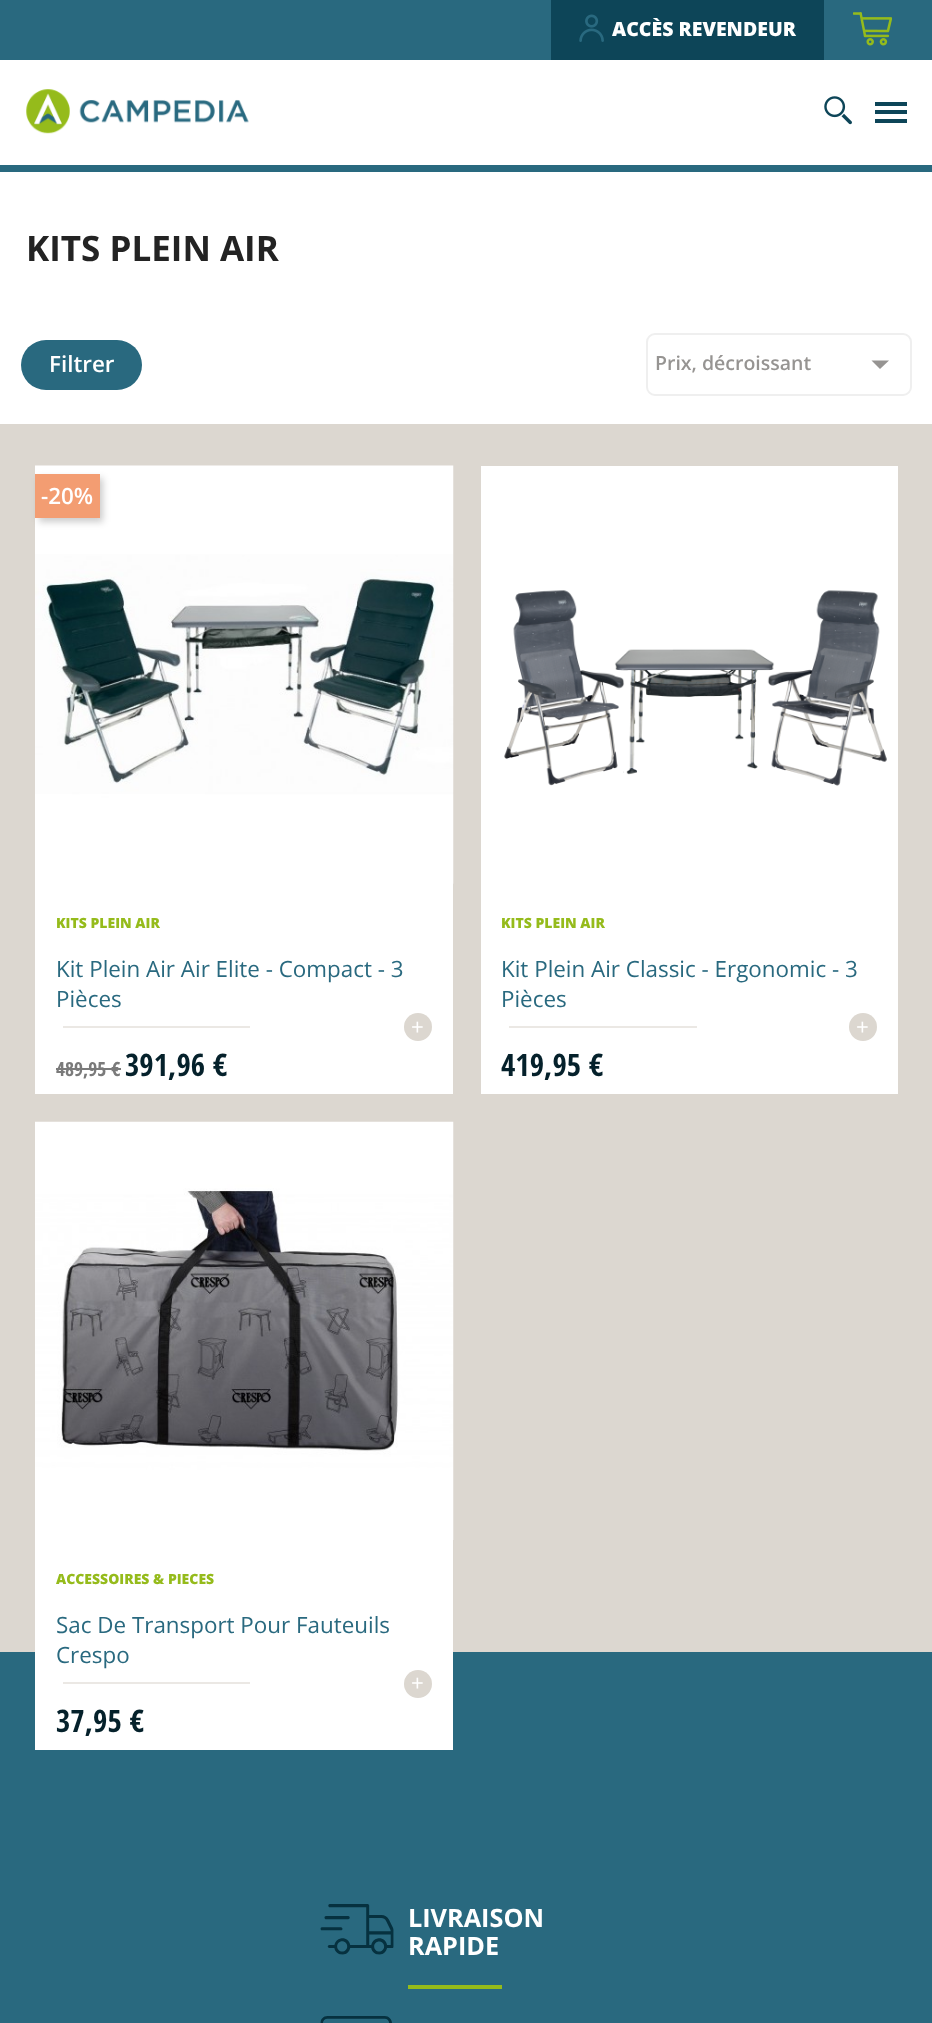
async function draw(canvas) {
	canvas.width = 932;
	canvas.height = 2023;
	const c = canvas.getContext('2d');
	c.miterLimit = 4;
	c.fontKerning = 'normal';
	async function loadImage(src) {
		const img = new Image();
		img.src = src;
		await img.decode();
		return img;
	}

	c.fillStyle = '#29697f';
	c.fillRect(0, 0, 932, 2023);
	c.fillStyle = '#0d4558';
	c.fillRect(551, 0, 273, 60);
	c.drawImage(await loadImage('img1.png'), 579, 14, 25, 28);
	c.font = '800 19.5px Open Sans';
	c.fillStyle = '#fff';
	c.fillText('ACCÈS REVENDEUR', 612, 36);
	c.drawImage(await loadImage('img2.png'), 853, 12, 39, 34);
	c.fillRect(0, 60, 932, 105);
	c.drawImage(await loadImage('img3.png'), 26, 89, 223, 45);
	c.drawImage(await loadImage('img4.png'), 824, 96, 28, 29);
	for (const [x, y, w, h, color] of [
		[875, 119, 32, 4, '#0d4558'],
		[875, 102, 32, 4, '#0d4558'],
		[875, 110, 32, 4, '#0d4558'],
		[0, 424, 932, 1228, '#dcd7d0'],
		[0, 172, 932, 252, '#fff'],
	]) {
		c.fillStyle = color;
		c.fillRect(x, y, w, h);
	}
	c.font = 'bold 35px Open Sans';
	c.fillStyle = '#232323';
	c.fillText('KITS PLEIN AIR', 26, 261);
	c.fillStyle = '#29697f';
	c.beginPath();
	c.roundRect(21, 340, 121, 50, 25);
	c.fill();
	c.font = '600 22.4px Open Sans';
	c.fillStyle = '#fff';
	c.fillText('Filtrer', 49, 372);
	c.beginPath();
	c.roundRect(647, 334, 264, 61, 8);
	c.strokeStyle = '#efefef';
	c.lineWidth = 2;
	c.stroke();
	c.font = '600 19.5px Open Sans';
	c.fillStyle = '#969492';
	c.fillText('Prix, décroissant', 655, 370);
	c.beginPath();
	c.moveTo(871.5, 360.5);
	c.lineTo(889, 360.5);
	c.lineTo(880, 369);
	c.closePath();
	c.fill();
	c.fillStyle = '#fff';
	c.fillRect(35, 883, 418, 211);
	c.drawImage(await loadImage('img5.png'), 35, 465, 419, 419);
	c.fillStyle = '#00000033';
	c.filter = 'blur(3.5px)';
	c.beginPath();
	c.rect(39, 478, 64, 44);
	c.fill();
	c.filter = 'none';
	c.fillStyle = '#f39d72';
	c.fillRect(35, 474, 65, 44);
	c.font = '600 22.4px Open Sans';
	c.fillStyle = '#fff';
	c.fillText('-20%', 41, 504);
	c.font = '800 14px Open Sans';
	c.fillStyle = '#95bb1b';
	c.fillText('KITS PLEIN AIR', 56, 928);
	c.font = '22.4px Open Sans';
	c.fillStyle = '#29697f';
	c.fillText('Kit Plein Air Air Elite - Compact - 3', 56, 977);
	c.fillText('Pièces', 56, 1007);
	c.fillStyle = '#ebe8e4';
	c.fillRect(63, 1026, 187, 2);
	c.fillStyle = '#dcd7d0';
	c.beginPath();
	c.arc(418, 1027, 14, 0, 2 * Math.PI);
	c.fill();
	c.fillStyle = '#fff';
	c.fillText('+', 411, 1035);
	c.font = 'bold 19.5px Open Sans Condensed';
	c.fillStyle = '#7a7a7a';
	c.fillText('489,95 €', 56, 1076);
	c.fillRect(56, 1068, 65, 2);
	c.font = 'bold 31px Open Sans Condensed';
	c.fillStyle = '#05212b';
	c.fillText('391,96 €', 125, 1076);
	c.fillStyle = '#fff';
	c.fillRect(481, 466, 417, 628);
	c.drawImage(await loadImage('img6.png'), 504, 590, 383, 196);
	c.font = '800 14px Open Sans';
	c.fillStyle = '#95bb1b';
	c.fillText('KITS PLEIN AIR', 501, 928);
	c.font = '22.4px Open Sans';
	c.fillStyle = '#29697f';
	c.fillText('Kit Plein Air Classic - Ergonomic - 3', 501, 977);
	c.fillText('Pièces', 501, 1007);
	c.fillStyle = '#ebe8e4';
	c.fillRect(509, 1026, 188, 2);
	c.fillStyle = '#dcd7d0';
	c.beginPath();
	c.arc(863, 1027, 14, 0, 2 * Math.PI);
	c.fill();
	c.fillStyle = '#fff';
	c.fillText('+', 856, 1035);
	c.font = 'bold 31px Open Sans Condensed';
	c.fillStyle = '#05212b';
	c.fillText('419,95 €', 501, 1076);
	c.fillStyle = '#fff';
	c.fillRect(35, 1540, 418, 210);
	c.drawImage(await loadImage('img7.png'), 35, 1121, 419, 419);
	c.font = '800 14px Open Sans';
	c.fillStyle = '#95bb1b';
	c.fillText('ACCESSOIRES & PIECES', 56, 1584);
	c.font = '22.4px Open Sans';
	c.fillStyle = '#29697f';
	c.fillText('Sac De Transport Pour Fauteuils', 56, 1633);
	c.fillText('Crespo', 56, 1663);
	c.fillStyle = '#ebe8e4';
	c.fillRect(63, 1682, 187, 2);
	c.fillStyle = '#dcd7d0';
	c.beginPath();
	c.arc(418, 1684, 14, 0, 2 * Math.PI);
	c.fill();
	c.fillStyle = '#fff';
	c.fillText('+', 411, 1691);
	c.font = 'bold 31px Open Sans Condensed';
	c.fillStyle = '#05212b';
	c.fillText('37,95 €', 56, 1732);
	c.drawImage(await loadImage('img8.png'), 320, 1904, 74, 51);
	c.font = 'bold 25.25px Open Sans';
	c.fillStyle = '#fff';
	c.fillText('LIVRAISON', 408, 1927);
	c.fillText('RAPIDE', 408, 1955);
	c.fillStyle = '#95bb1b';
	c.fillRect(408, 1985, 94, 4);
	c.drawImage(await loadImage('img9.png'), 320, 2016, 72, 7);
}

draw(document.querySelector('canvas'));
